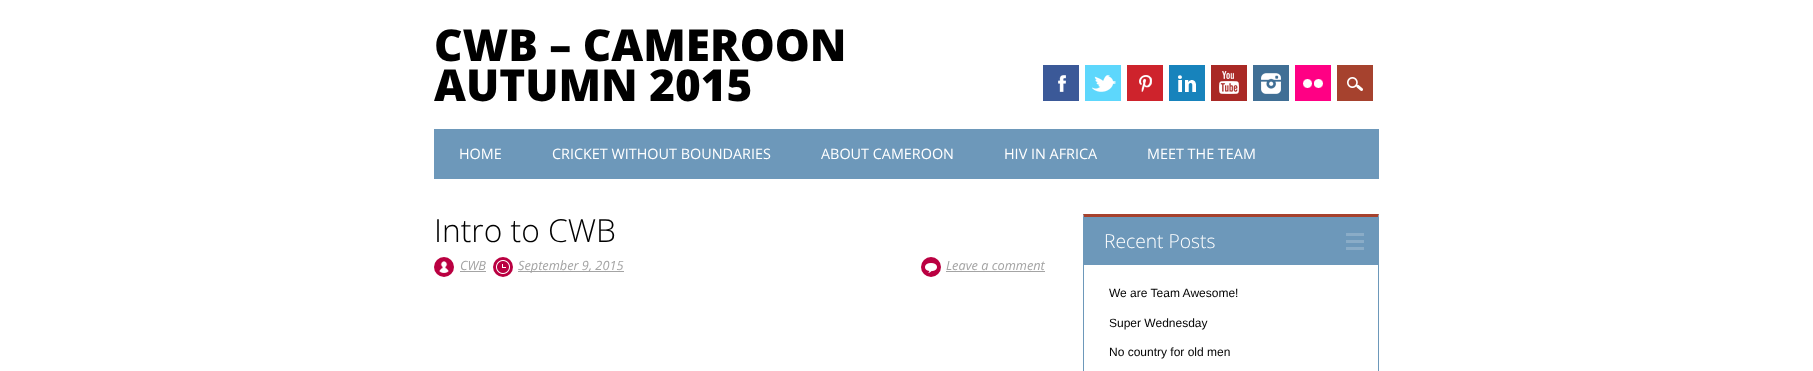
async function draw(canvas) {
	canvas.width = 1813;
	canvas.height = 371;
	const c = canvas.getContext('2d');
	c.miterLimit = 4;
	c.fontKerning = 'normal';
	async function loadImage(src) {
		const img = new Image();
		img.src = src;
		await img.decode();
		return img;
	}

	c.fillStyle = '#fff';
	c.fillRect(0, 0, 1813, 371);
	c.font = '800 44px Open Sans';
	c.fillStyle = '#000';
	c.fillText('CWB – CAMEROON', 434, 61);
	c.fillText('AUTUMN 2015', 434, 101);
	c.fillStyle = '#3b5998';
	c.fillRect(1043, 65, 36, 36);
	c.drawImage(await loadImage('img1.png'), 1058, 75, 8, 17);
	c.fillStyle = '#5dd7fc';
	c.fillRect(1085, 65, 36, 36);
	c.drawImage(await loadImage('img2.png'), 1092, 75, 24, 17);
	c.fillStyle = '#ce232c';
	c.fillRect(1127, 65, 36, 36);
	c.drawImage(await loadImage('img3.png'), 1139, 75, 13, 17);
	c.fillStyle = '#1783bc';
	c.fillRect(1169, 65, 36, 36);
	c.drawImage(await loadImage('img4.png'), 1178, 75, 18, 17);
	c.fillStyle = '#a92925';
	c.fillRect(1211, 65, 36, 36);
	c.drawImage(await loadImage('img5.png'), 1219, 71, 20, 23);
	c.fillStyle = '#406f95';
	c.fillRect(1253, 65, 36, 36);
	c.drawImage(await loadImage('img6.png'), 1261, 73, 20, 21);
	c.fillStyle = '#ff0084';
	c.fillRect(1295, 65, 36, 36);
	c.drawImage(await loadImage('img7.png'), 1303, 79, 20, 9);
	c.fillStyle = '#a6422e';
	c.fillRect(1337, 65, 36, 36);
	c.drawImage(await loadImage('img8.png'), 1347, 77, 16, 14);
	c.fillStyle = '#6d98ba';
	c.fillRect(434, 129, 945, 50);
	c.font = '14.4px Open Sans';
	c.fillStyle = '#fff';
	for (const [text, x, y] of [
		['HOME', 459, 159],
		['CRICKET WITHOUT BOUNDARIES', 552, 159],
		['ABOUT CAMEROON', 821, 159],
		['HIV IN AFRICA', 1004, 159],
		['MEET THE TEAM', 1147, 159],
	]) {
		c.fillText(text, x, y);
	}
	c.font = '300 31.75px Open Sans';
	c.fillStyle = '#000';
	c.fillText('Intro to CWB', 434, 242);
	c.fillStyle = '#ba0041';
	c.beginPath();
	c.arc(444, 267, 10, 0, 2 * Math.PI);
	c.fill();
	c.drawImage(await loadImage('img9.png'), 439, 261, 10, 12);
	c.font = 'italic 12.75px Open Sans';
	c.fillStyle = '#a4a4a4';
	c.fillText('CWB', 460, 270);
	c.fillRect(460, 271, 26, 1);
	c.fillStyle = '#ba0041';
	c.beginPath();
	c.arc(503, 267, 10, 0, 2 * Math.PI);
	c.fill();
	c.drawImage(await loadImage('img10.png'), 496, 260, 14, 14);
	c.fillStyle = '#a4a4a4';
	c.fillRect(518, 271, 106, 1);
	c.fillText('September 9, 2015', 518, 270);
	c.fillStyle = '#ba0041';
	c.beginPath();
	c.arc(931, 267, 10, 0, 2 * Math.PI);
	c.fill();
	c.drawImage(await loadImage('img11.png'), 925, 263, 12, 10);
	c.fillStyle = '#a4a4a4';
	c.fillText('Leave a comment', 946, 270);
	c.fillRect(946, 271, 99, 1);
	c.fillStyle = '#a6422e';
	c.beginPath();
	c.moveTo(1083, 214);
	c.lineTo(1379, 214);
	c.lineTo(1378, 217);
	c.lineTo(1084, 217);
	c.closePath();
	c.fill();
	c.fillStyle = '#6d98ba';
	c.beginPath();
	c.moveTo(1379, 214);
	c.lineTo(1379, 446);
	c.lineTo(1378, 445);
	c.lineTo(1378, 217);
	c.closePath();
	c.fill();
	c.beginPath();
	c.moveTo(1083, 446);
	c.lineTo(1083, 214);
	c.lineTo(1084, 217);
	c.lineTo(1084, 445);
	c.closePath();
	c.fill();
	c.fillRect(1084, 217, 294, 48);
	c.drawImage(await loadImage('img12.png'), 1346, 233, 18, 17);
	c.font = '300 19.25px Open Sans';
	c.fillStyle = '#fff';
	c.fillText('Recent Posts', 1104, 248);
	c.font = '12px Liberation Sans';
	c.fillStyle = '#000';
	for (const [text, x, y] of [
		['We are Team Awesome!', 1109, 297],
		['Super Wednesday', 1109, 327],
		['No country for old men', 1109, 356],
	]) {
		c.fillText(text, x, y);
	}
}

draw(document.querySelector('canvas'));
